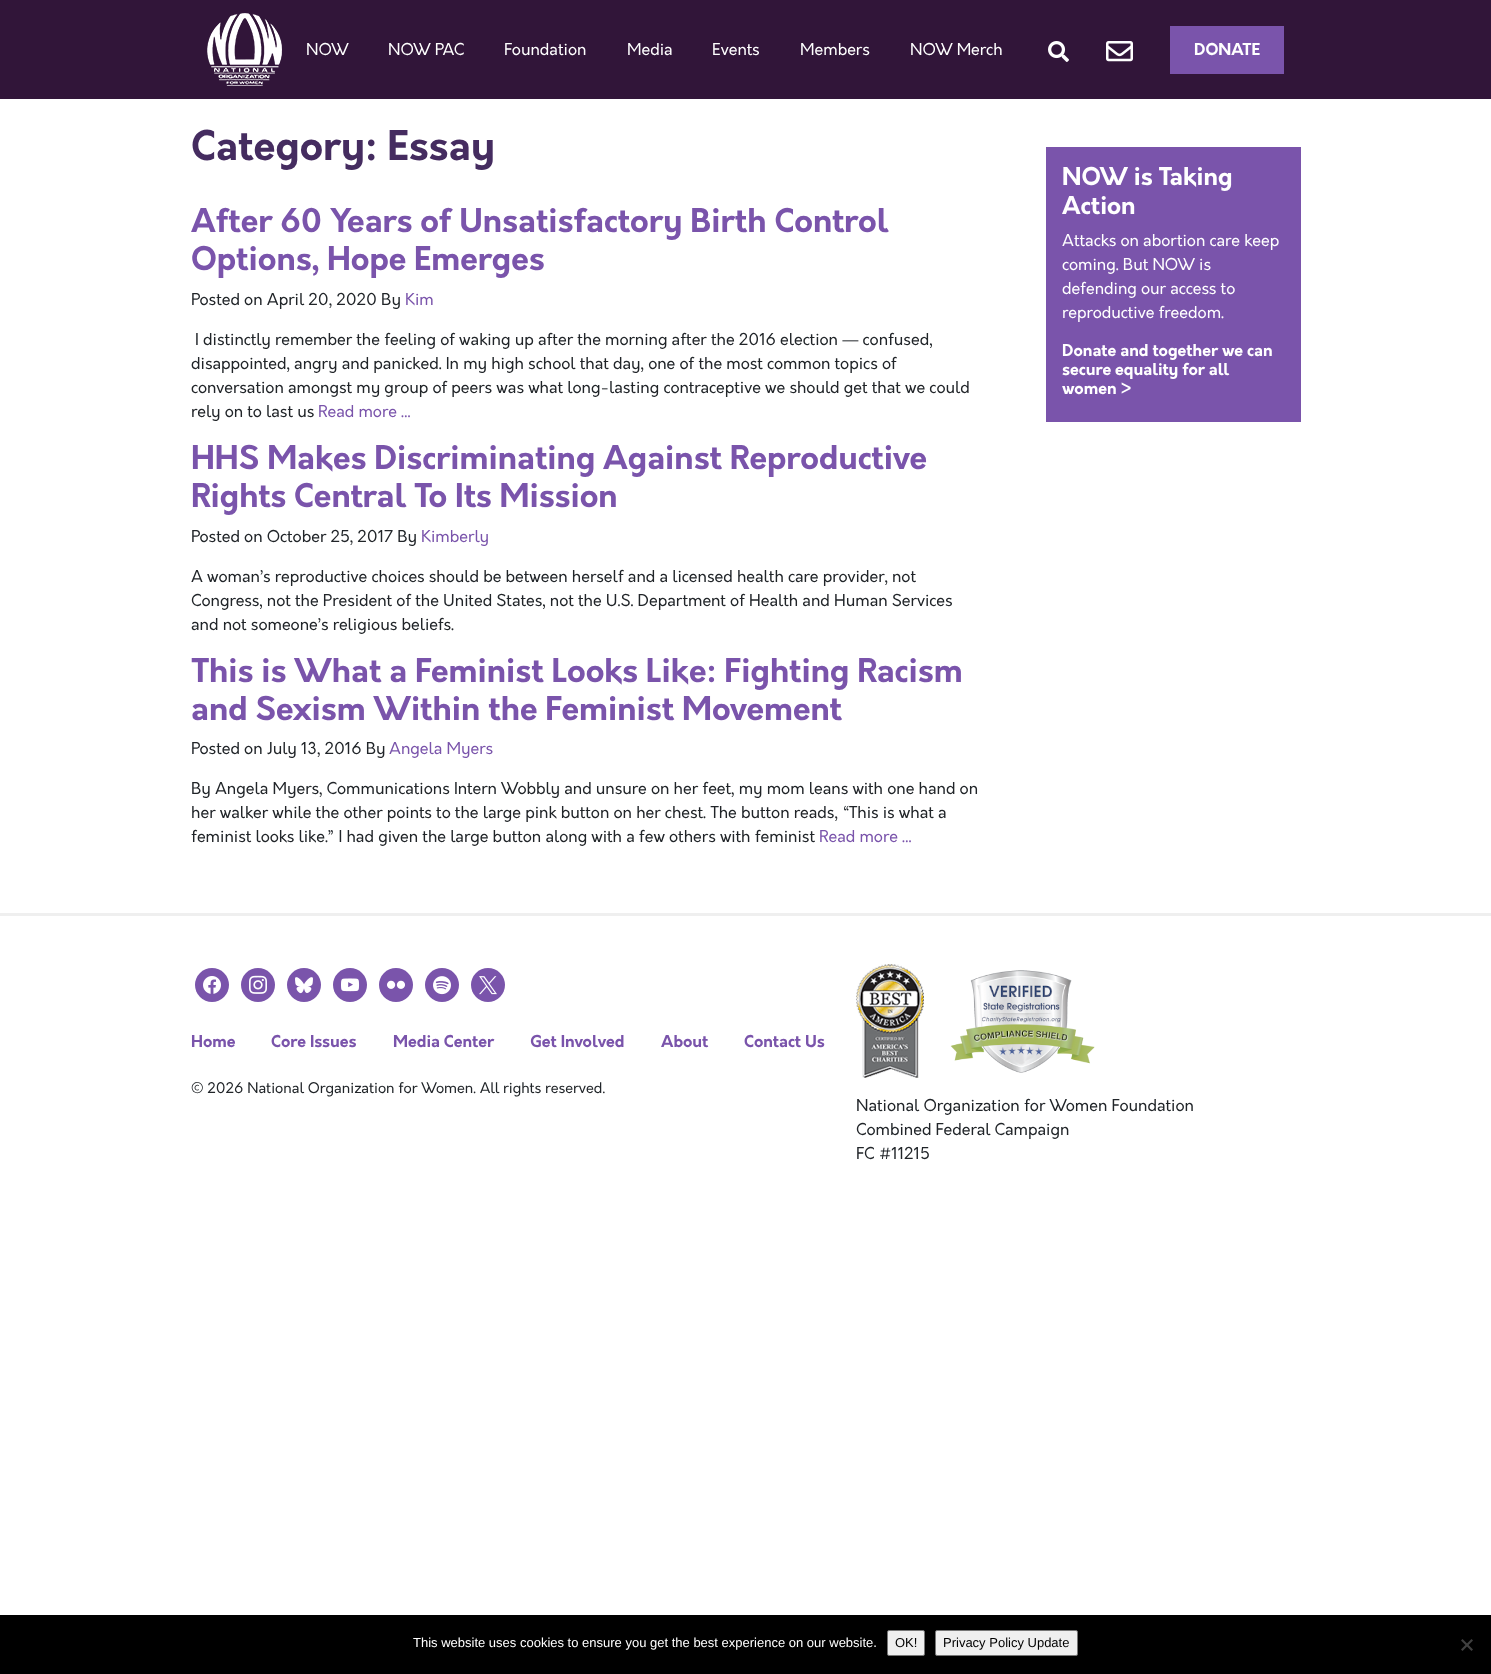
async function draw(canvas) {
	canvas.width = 1491;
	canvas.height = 1674;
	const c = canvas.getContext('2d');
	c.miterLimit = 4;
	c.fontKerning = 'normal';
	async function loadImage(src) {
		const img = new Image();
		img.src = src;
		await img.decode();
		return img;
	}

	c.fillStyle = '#fff';
	c.fillRect(0, 0, 1491, 1674);
	c.fillStyle = '#311539';
	c.fillRect(0, 0, 1491, 99);
	c.drawImage(await loadImage('img1.png'), 207, 13, 75, 73);
	c.font = '16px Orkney';
	c.fillStyle = '#fff';
	for (const [text, x, y] of [
		['NOW', 306, 55],
		['NOW PAC', 388, 55],
		['Foundation', 504, 55],
		['Media', 627, 55],
		['Events', 712, 55],
		['Members', 800, 55],
		['NOW Merch', 910, 55],
	]) {
		c.fillText(text, x, y);
	}
	c.drawImage(await loadImage('img2.png'), 1048, 41, 21, 21);
	c.drawImage(await loadImage('img3.png'), 1106, 41, 27, 21);
	c.fillStyle = '#7a54ab';
	c.fillRect(1170, 26, 114, 48);
	c.font = 'bold 16px Orkney';
	c.fillStyle = '#fff';
	c.fillText('DONATE', 1194, 55);
	c.font = 'bold 40px Orkney';
	c.fillStyle = '#452c60';
	c.fillText('Category: Essay', 191, 160);
	c.font = 'bold 32px Orkney';
	c.fillStyle = '#7a54ab';
	c.fillText('After 60 Years of Unsatisfactory Birth Control', 191, 232);
	c.fillText('Options, Hope Emerges', 191, 270);
	c.font = '16px Orkney';
	c.fillStyle = '#212529';
	c.fillText('Posted on April 20, 2020 By', 191, 305);
	c.fillStyle = '#7a54ab';
	c.fillText('Kim', 405, 305);
	c.fillStyle = '#212529';
	for (const [text, x, y] of [
		['I distinctly remember the feeling of waking up after the morning after the 2016 election — confused,', 195, 345],
		['disappointed, angry and panicked. In my high school that day, one of the most common topics of', 191, 369],
		['conversation amongst my group of peers was what long-lasting contraceptive we should get that we could', 191, 393],
		['rely on to last us', 191, 417],
	]) {
		c.fillText(text, x, y);
	}
	c.fillStyle = '#7a54ab';
	c.fillText('Read more …', 318, 417);
	c.font = 'bold 32px Orkney';
	c.fillText('HHS Makes Discriminating Against Reproductive', 191, 469);
	c.fillText('Rights Central To Its Mission', 191, 507);
	c.font = '16px Orkney';
	c.fillStyle = '#212529';
	c.fillText('Posted on October 25, 2017 By', 191, 542);
	c.fillStyle = '#7a54ab';
	c.fillText('Kimberly', 421, 542);
	c.fillStyle = '#212529';
	for (const [text, x, y] of [
		['A woman’s reproductive choices should be between herself and a licensed health care provider, not', 191, 582],
		['Congress, not the President of the United States, not the U.S. Department of Health and Human Services', 191, 606],
		['and not someone’s religious beliefs.', 191, 630],
	]) {
		c.fillText(text, x, y);
	}
	c.font = 'bold 32px Orkney';
	c.fillStyle = '#7a54ab';
	c.fillText('This is What a Feminist Looks Like: Fighting Racism', 191, 682);
	c.fillText('and Sexism Within the Feminist Movement', 191, 720);
	c.font = '16px Orkney';
	c.fillStyle = '#212529';
	c.fillText('Posted on July 13, 2016 By', 191, 754);
	c.fillStyle = '#7a54ab';
	c.fillText('Angela Myers', 389, 754);
	c.fillStyle = '#212529';
	for (const [text, x, y] of [
		['By Angela Myers, Communications Intern Wobbly and unsure on her feet, my mom leans with one hand on', 191, 794],
		['her walker while the other points to the large pink button on her chest. The button reads, “This is what a', 191, 818],
		['feminist looks like.” I had given the large button along with a few others with feminist', 191, 842],
	]) {
		c.fillText(text, x, y);
	}
	c.fillStyle = '#7a54ab';
	c.fillText('Read more …', 819, 842);
	c.fillRect(1046, 147, 255, 275);
	c.font = 'bold 24px Orkney';
	c.fillStyle = '#fff';
	c.fillText('NOW is Taking', 1062, 185);
	c.fillText('Action', 1062, 214);
	c.font = '16px Orkney';
	for (const [text, x, y] of [
		['Attacks on abortion care keep', 1062, 246],
		['coming. But NOW is', 1062, 270],
		['defending our access to', 1062, 294],
		['reproductive freedom.', 1062, 318],
	]) {
		c.fillText(text, x, y);
	}
	c.font = 'bold 16px Orkney';
	for (const [text, x, y] of [
		['Donate and together we can', 1062, 356],
		['secure equality for all', 1062, 375],
		['women >', 1062, 394],
	]) {
		c.fillText(text, x, y);
	}
	c.fillStyle = '#efefef';
	c.fillRect(0, 913, 1491, 3);
	c.fillStyle = '#7a54ab';
	c.beginPath();
	c.arc(212, 985, 17, 0, 2 * Math.PI);
	c.fill();
	c.drawImage(await loadImage('img4.png'), 203, 976, 18, 18);
	c.beginPath();
	c.arc(258, 985, 17, 0, 2 * Math.PI);
	c.fill();
	c.drawImage(await loadImage('img5.png'), 249, 975, 18, 19);
	c.beginPath();
	c.arc(304, 985, 17, 0, 2 * Math.PI);
	c.fill();
	c.drawImage(await loadImage('img6.png'), 295, 977, 18, 17);
	c.beginPath();
	c.arc(350, 985, 17, 0, 2 * Math.PI);
	c.fill();
	c.drawImage(await loadImage('img7.png'), 341, 978, 19, 14);
	c.beginPath();
	c.arc(396, 985, 17, 0, 2 * Math.PI);
	c.fill();
	c.drawImage(await loadImage('img8.png'), 387, 980, 18, 9);
	c.beginPath();
	c.arc(442, 985, 17, 0, 2 * Math.PI);
	c.fill();
	c.drawImage(await loadImage('img9.png'), 433, 976, 18, 19);
	c.beginPath();
	c.arc(488, 985, 17, 0, 2 * Math.PI);
	c.fill();
	c.drawImage(await loadImage('img10.png'), 479, 976, 18, 19);
	for (const [text, x, y] of [
		['Home', 191, 1047],
		['Core Issues', 271, 1047],
		['Media Center', 393, 1047],
		['Get Involved', 530, 1047],
		['About', 661, 1047],
		['Contact Us', 744, 1047],
	]) {
		c.fillText(text, x, y);
	}
	c.font = '14.4px Orkney';
	c.fillStyle = '#212529';
	c.fillText('© 2026 National Organization for Women. All rights reserved.', 191, 1093);
	c.drawImage(await loadImage('img11.png'), 856, 964, 68, 114);
	c.drawImage(await loadImage('img12.png'), 950, 970, 145, 103);
	c.font = '16px Orkney';
	for (const [text, x, y] of [
		['National Organization for Women Foundation', 856, 1111],
		['Combined Federal Campaign', 856, 1135],
		['FC #11215', 856, 1159],
	]) {
		c.fillText(text, x, y);
	}
	c.fillStyle = '#000';
	c.fillRect(0, 1615, 1491, 59);
	c.font = '13px Liberation Sans';
	c.fillStyle = '#fff';
	c.fillText('This website uses cookies to ensure you get the best experience on our website.', 413, 1647);
	c.fillStyle = '#efefef';
	c.beginPath();
	c.roundRect(887.5, 1630.5, 37, 25, 1.5);
	c.fill();
	c.strokeStyle = '#767676';
	c.stroke();
	c.fillStyle = '#000';
	c.fillText('OK!', 895, 1647);
	c.fillStyle = '#efefef';
	c.beginPath();
	c.roundRect(935.5, 1630.5, 142, 25, 1.5);
	c.fill();
	c.stroke();
	c.fillStyle = '#000';
	c.fillText('Privacy Policy Update', 943, 1647);
	c.fillStyle = '#404040';
	c.beginPath();
	c.moveTo(1471.5, 1639);
	c.lineTo(1473, 1640.5);
	c.lineTo(1462.5, 1651);
	c.lineTo(1461, 1649.5);
	c.closePath();
	c.fill();
	c.beginPath();
	c.moveTo(1461, 1640.5);
	c.lineTo(1462.5, 1639);
	c.lineTo(1473, 1649.5);
	c.lineTo(1471.5, 1651);
	c.closePath();
	c.fill();
}

draw(document.querySelector('canvas'));
